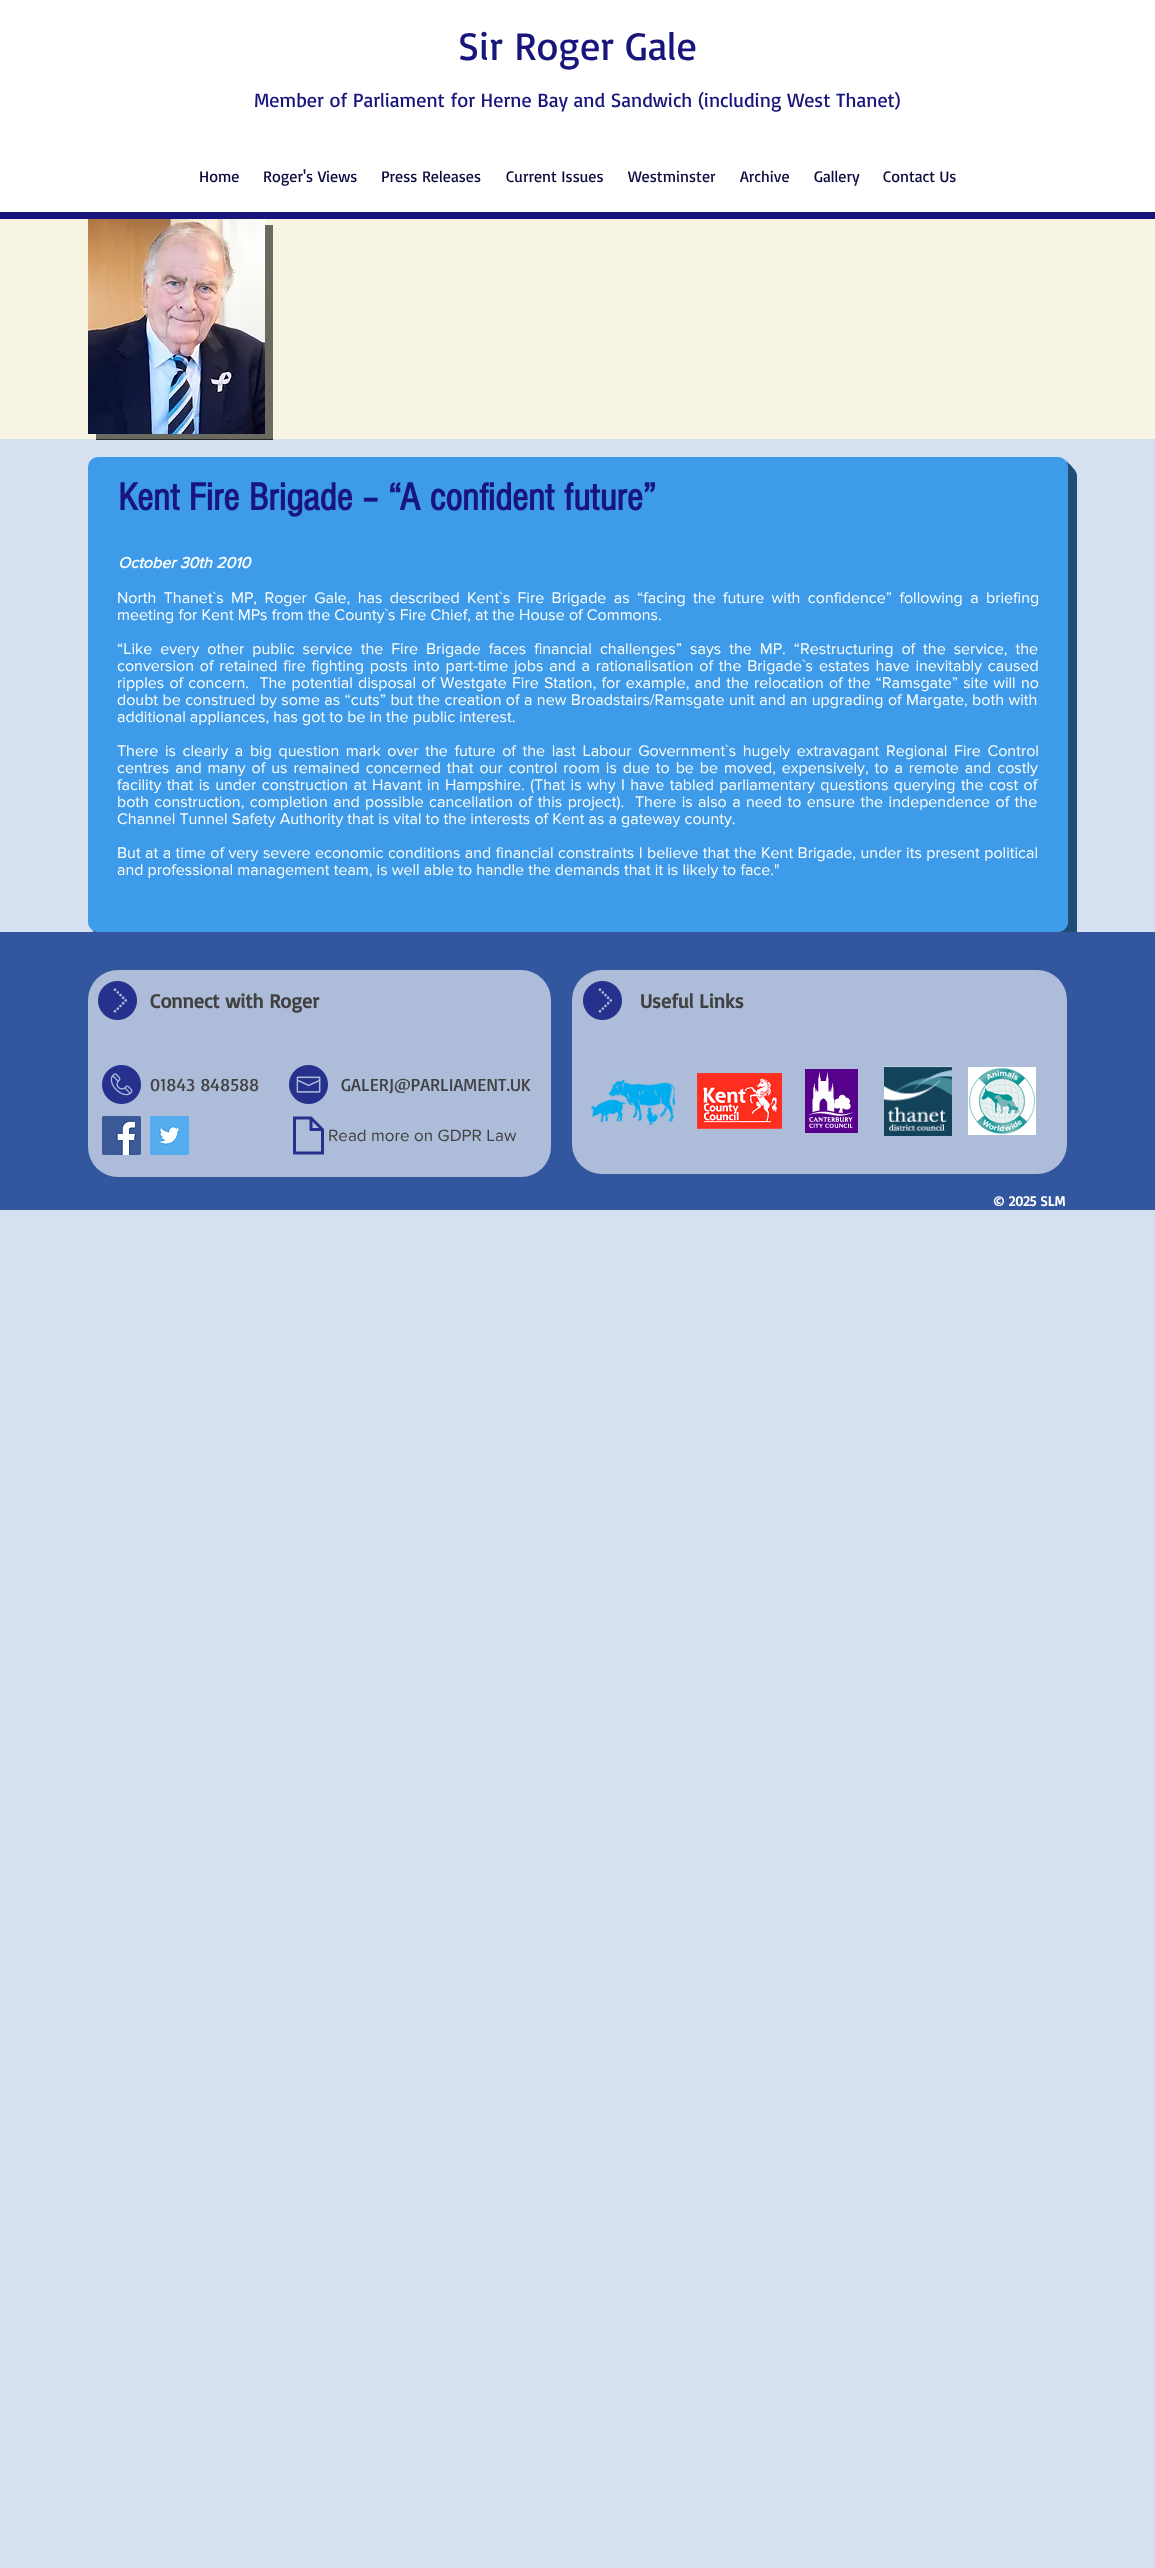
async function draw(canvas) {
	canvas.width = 1155;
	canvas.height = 2568;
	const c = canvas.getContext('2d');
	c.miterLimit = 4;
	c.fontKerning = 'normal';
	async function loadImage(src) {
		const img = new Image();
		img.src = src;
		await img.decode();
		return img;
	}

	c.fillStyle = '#d5e0f0';
	c.fillRect(0, 0, 1155, 2568);
	c.fillStyle = '#fff';
	c.fillRect(0, 0, 1155, 212);
	c.fillStyle = '#18157c';
	c.fillRect(0, 212, 1155, 7);
	c.font = '40px Basic';
	c.fillText('Sir Roger Gale', 458, 60);
	c.font = '20px Basic';
	c.fillText('Member of Parliament for Herne Bay and Sandwich (including West Thanet)', 254, 107);
	c.font = '16px Basic';
	c.fillStyle = '#0c0b3e';
	for (const [text, x, y] of [
		['Home', 199, 182],
		['Roger\'s Views', 263, 182],
		['Press Releases', 381, 182],
		['Current Issues', 506, 182],
		['Westminster', 628, 182],
		['Archive', 740, 182],
		['Gallery', 814, 182],
		['Contact Us', 883, 182],
	]) {
		c.fillText(text, x, y);
	}
	c.fillStyle = '#00000091';
	c.beginPath();
	c.moveTo(96, 434);
	c.lineTo(96, 440);
	c.lineTo(273, 440);
	c.lineTo(273, 225);
	c.lineTo(265, 225);
	c.lineTo(265, 434);
	c.closePath();
	c.fill();
	c.fillStyle = '#f7f5e1';
	c.fillRect(0, 219, 1155, 220);
	c.fillStyle = '#00000091';
	c.beginPath();
	c.moveTo(96, 434);
	c.lineTo(96, 440);
	c.lineTo(273, 440);
	c.lineTo(273, 225);
	c.lineTo(265, 225);
	c.lineTo(265, 434);
	c.closePath();
	c.fill();
	c.drawImage(await loadImage('img1.png'), 88, 219, 177, 215);
	c.fillStyle = '#1f4e75';
	c.beginPath();
	c.moveTo(97, 932);
	c.bezierCurveTo(98, 937, 102, 941, 107, 941);
	c.lineTo(1067, 941);
	c.bezierCurveTo(1073, 941, 1077, 937, 1077, 931);
	c.lineTo(1077, 476);
	c.bezierCurveTo(1077, 471, 1073, 467, 1068, 466);
	c.lineTo(1068, 922);
	c.bezierCurveTo(1068, 927, 1063, 932, 1058, 932);
	c.closePath();
	c.fill();
	c.beginPath();
	c.moveTo(95, 932);
	c.bezierCurveTo(97, 936, 100, 939, 105, 939);
	c.lineTo(1065, 939);
	c.bezierCurveTo(1071, 939, 1075, 935, 1075, 929);
	c.lineTo(1075, 474);
	c.bezierCurveTo(1075, 469, 1072, 466, 1068, 464);
	c.lineTo(1068, 467);
	c.lineTo(1068, 922);
	c.bezierCurveTo(1068, 928, 1064, 932, 1058, 932);
	c.lineTo(98, 932);
	c.closePath();
	c.fill();
	c.beginPath();
	c.moveTo(94, 931);
	c.bezierCurveTo(95, 935, 99, 937, 103, 937);
	c.lineTo(1063, 937);
	c.bezierCurveTo(1069, 937, 1073, 933, 1073, 927);
	c.lineTo(1073, 472);
	c.bezierCurveTo(1073, 468, 1071, 464, 1067, 463);
	c.lineTo(1068, 467);
	c.lineTo(1068, 922);
	c.bezierCurveTo(1068, 928, 1064, 932, 1058, 932);
	c.lineTo(98, 932);
	c.closePath();
	c.fill();
	c.beginPath();
	c.moveTo(93, 930);
	c.bezierCurveTo(94, 933, 97, 935, 101, 935);
	c.lineTo(1061, 935);
	c.bezierCurveTo(1067, 935, 1071, 931, 1071, 925);
	c.lineTo(1071, 470);
	c.bezierCurveTo(1071, 466, 1069, 463, 1066, 462);
	c.bezierCurveTo(1067, 463, 1068, 465, 1068, 467);
	c.lineTo(1068, 922);
	c.bezierCurveTo(1068, 928, 1064, 932, 1058, 932);
	c.lineTo(98, 932);
	c.bezierCurveTo(96, 932, 94, 931, 93, 930);
	c.closePath();
	c.fill();
	c.beginPath();
	c.moveTo(91, 930);
	c.bezierCurveTo(93, 932, 96, 933, 99, 933);
	c.lineTo(1059, 933);
	c.bezierCurveTo(1065, 933, 1069, 929, 1069, 923);
	c.lineTo(1069, 468);
	c.bezierCurveTo(1069, 465, 1068, 462, 1066, 460);
	c.bezierCurveTo(1067, 462, 1068, 464, 1068, 467);
	c.lineTo(1068, 922);
	c.bezierCurveTo(1068, 928, 1064, 932, 1058, 932);
	c.lineTo(98, 932);
	c.bezierCurveTo(95, 932, 93, 931, 91, 930);
	c.closePath();
	c.fill();
	c.fillStyle = '#3d9be9';
	c.beginPath();
	c.roundRect(88, 457, 980, 475, 10);
	c.fill();
	c.font = 'bold 40px "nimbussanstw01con"';
	c.fillStyle = '#18157c';
	c.fillText('Kent Fire Brigade – “A confident future”', 118, 510);
	c.font = 'italic bold 16px "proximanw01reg"';
	c.fillStyle = '#fff';
	c.fillText('October 30th 2010', 118, 568);
	c.wordSpacing = '3.25px';
	c.font = '16px "proximanw01reg"';
	c.fillText('North Thanet`s MP, Roger Gale, has described Kent`s Fire Brigade as “facing the future with confidence” following a briefing', 117, 603);
	c.wordSpacing = '0px';
	c.fillText('meeting for Kent MPs from the County`s Fire Chief, at the House of Commons.', 117, 620);
	c.wordSpacing = '3.9px';
	c.fillText('“Like every other public service the Fire Brigade faces financial challenges” says the MP. “Restructuring of the service, the', 117, 654);
	c.wordSpacing = '1.7px';
	c.fillText('conversion of retained fire fighting posts into part-time jobs and a rationalisation of the Brigade`s estates have inevitably caused', 117, 671);
	c.wordSpacing = '1.1px';
	c.fillText('ripples of concern.  The potential disposal of Westgate Fire Station, for example, and the relocation of the “Ramsgate” site will no', 117, 688);
	c.wordSpacing = '0.3px';
	c.fillText('doubt be construed by some as “cuts” but the creation of a new Broadstairs/Ramsgate unit and an upgrading of Margate, both with', 117, 705);
	c.wordSpacing = '0px';
	c.fillText('additional appliances, has got to be in the public interest.', 117, 722);
	c.wordSpacing = '2.5px';
	c.fillText('There is clearly a big question mark over the future of the last Labour Government`s hugely extravagant Regional Fire Control', 117, 756);
	c.wordSpacing = '1.85px';
	c.fillText('centres and many of us remained concerned that our control room is due to be be moved, expensively, to a remote and costly', 117, 773);
	c.wordSpacing = '1.3px';
	c.fillText('facility that is under construction at Havant in Hampshire. (That is why I have tabled parliamentary questions querying the cost of', 117, 790);
	c.fillText('both construction, completion and possible cancellation of this project).  There is also a need to ensure the independence of the', 117, 807);
	c.wordSpacing = '0px';
	c.fillText('Channel Tunnel Safety Authority that is vital to the interests of Kent as a gateway county.', 117, 824);
	c.wordSpacing = '0.35px';
	c.fillText('But at a time of very severe economic conditions and financial constraints I believe that the Kent Brigade, under its present political', 117, 858);
	c.wordSpacing = '0px';
	c.fillText('and professional management team, is well able to handle the demands that it is likely to face."', 117, 875);
	c.fillStyle = '#33579f';
	c.fillRect(0, 932, 1155, 278);
	c.fillStyle = '#adbcd9';
	c.beginPath();
	c.roundRect(88, 970, 463, 207, 30);
	c.fill();
	c.drawImage(await loadImage('img2.png'), 98, 981, 39, 39);
	c.font = 'bold 20px Basic';
	c.fillStyle = '#414141';
	c.fillText('Connect with Roger', 150, 1008);
	c.drawImage(await loadImage('img3.png'), 102, 1065, 39, 39);
	c.font = '18px Basic';
	c.fillText('01843 848588', 150, 1091);
	c.drawImage(await loadImage('img4.png'), 289, 1065, 39, 39);
	c.fillText('GALERJ@PARLIAMENT.UK', 341, 1091);
	c.drawImage(await loadImage('img5.png'), 102, 1116, 39, 39);
	c.drawImage(await loadImage('img6.png'), 150, 1116, 39, 39);
	c.fillStyle = '#25318d';
	c.beginPath();
	c.moveTo(311.5, 1116.5);
	c.lineTo(293, 1116.5);
	c.lineTo(293, 1154.5);
	c.lineTo(324, 1154.5);
	c.lineTo(324, 1129);
	c.closePath();
	c.moveTo(312.5, 1121.5);
	c.lineTo(319, 1128);
	c.lineTo(312.5, 1128);
	c.closePath();
	c.moveTo(296, 1151.5);
	c.lineTo(296, 1119.5);
	c.lineTo(309.5, 1119.5);
	c.lineTo(309.5, 1131);
	c.lineTo(321, 1131);
	c.lineTo(321, 1151.5);
	c.closePath();
	c.fill();
	c.font = '17px "proximanw01reg"';
	c.fillStyle = '#414141';
	c.fillText('Read more on GDPR Law', 328, 1141);
	c.fillStyle = '#adbcd9';
	c.beginPath();
	c.roundRect(572, 970, 495, 204, 30);
	c.fill();
	c.drawImage(await loadImage('img2.png'), 583, 981, 39, 39);
	c.font = 'bold 20px Basic';
	c.fillStyle = '#414141';
	c.fillText('Useful Links', 640, 1008);
	c.drawImage(await loadImage('img7.png'), 590, 1079, 85, 46);
	c.drawImage(await loadImage('img8.png'), 697, 1073, 85, 56);
	c.drawImage(await loadImage('img9.png'), 805, 1069, 53, 64);
	c.drawImage(await loadImage('img10.png'), 884, 1066, 68, 70);
	c.drawImage(await loadImage('img11.png'), 968, 1067, 68, 68);
	c.font = 'bold 14px Basic';
	c.fillStyle = '#fff';
	c.fillText('© 2025 SLM', 993, 1206);
}

draw(document.querySelector('canvas'));
